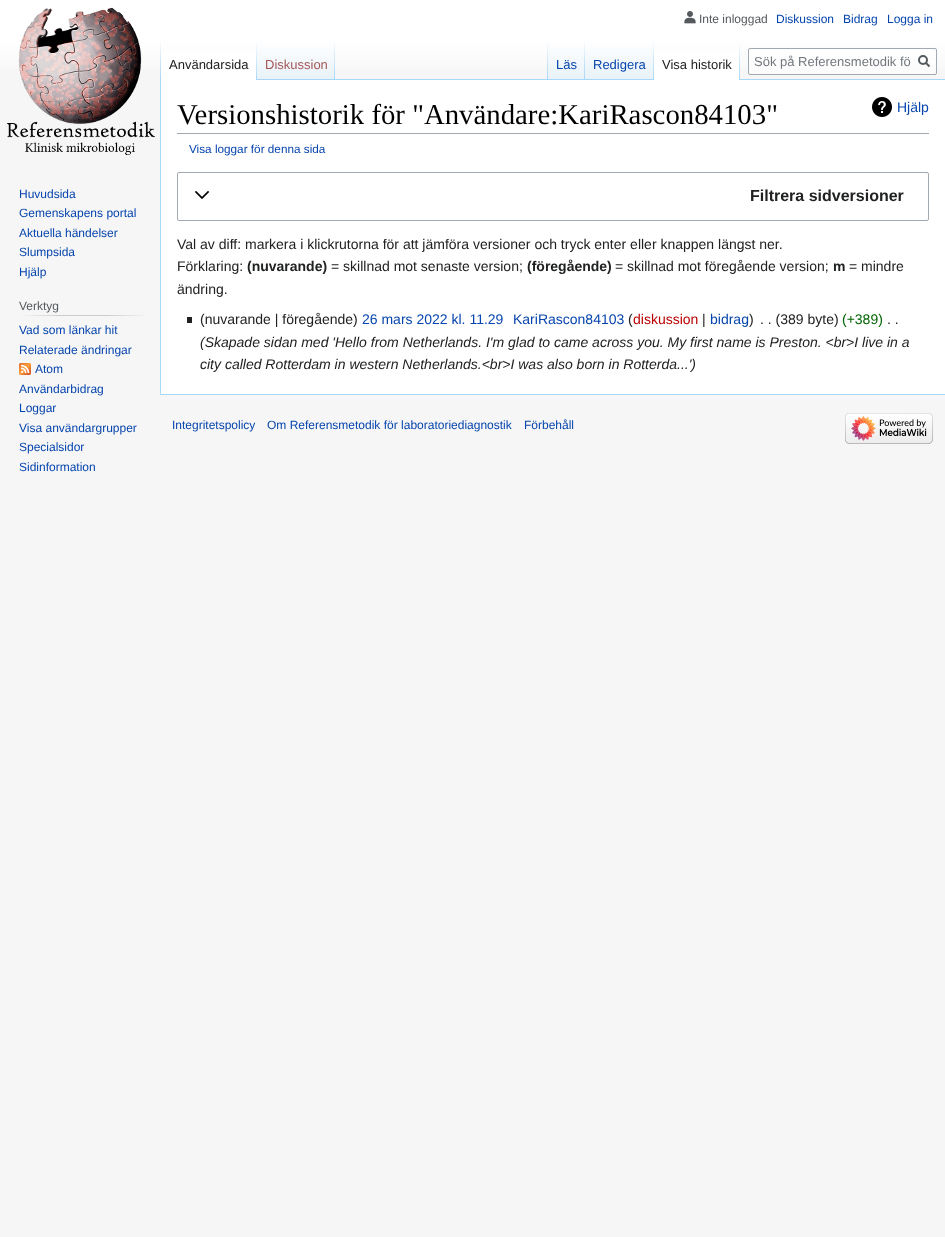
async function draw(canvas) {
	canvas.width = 945;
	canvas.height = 1237;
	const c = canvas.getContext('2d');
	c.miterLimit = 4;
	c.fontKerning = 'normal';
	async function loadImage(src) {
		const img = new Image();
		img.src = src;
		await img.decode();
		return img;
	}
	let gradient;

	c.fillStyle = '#f6f6f6';
	c.fillRect(0, 0, 945, 1237);
	gradient = c.createLinearGradient(473, 0, 473, 80);
	gradient.addColorStop(0.5, '#fff');
	gradient.addColorStop(1, '#f6f6f6');
	c.fillStyle = gradient;
	c.fillRect(0, 0, 945, 69);
	c.drawImage(await loadImage('img1.png'), 684, 11, 12, 13);
	c.font = '12px Liberation Sans';
	c.fillStyle = '#54595d';
	c.fillText('Inte inloggad', 699, 23);
	c.fillStyle = '#0645ad';
	for (const [text, x, y] of [
		['Diskussion', 776, 23],
		['Bidrag', 843, 23],
		['Logga in', 887, 23],
	]) {
		c.fillText(text, x, y);
	}
	c.fillStyle = '#a7d7f9';
	c.fillRect(160, 394, 785, 1);
	c.fillRect(160, 79, 1, 316);
	gradient = c.createLinearGradient(161, 40, 161, 80);
	gradient.addColorStop(0, '#a7d7f900');
	gradient.addColorStop(1, '#a7d7f9');
	c.fillStyle = gradient;
	c.fillRect(160, 40, 1, 40);
	c.fillStyle = '#fff';
	c.fillRect(161, 51, 95, 29);
	gradient = c.createLinearGradient(257, 40, 257, 80);
	gradient.addColorStop(0, '#fff');
	gradient.addColorStop(1, '#a7d7f9');
	c.fillStyle = gradient;
	c.fillRect(256, 40, 1, 40);
	c.font = '13px Liberation Sans';
	c.fillStyle = '#202122';
	c.fillText('Användarsida', 169, 69);
	gradient = c.createLinearGradient(296, 80, 296, 40);
	gradient.addColorStop(0, '#77c1f6');
	gradient.addColorStop(0.03, '#e8f2f8');
	gradient.addColorStop(1, '#fff');
	c.fillStyle = gradient;
	c.fillRect(257, 46, 78, 34);
	gradient = c.createLinearGradient(335, 40, 335, 80);
	gradient.addColorStop(0, '#a7d7f900');
	gradient.addColorStop(1, '#a7d7f9');
	c.fillStyle = gradient;
	c.fillRect(334, 40, 1, 40);
	c.fillStyle = '#a55858';
	c.fillText('Diskussion', 265, 69);
	c.fillStyle = '#a7d7f9';
	c.fillRect(335, 79, 610, 1);
	gradient = c.createLinearGradient(548, 40, 548, 80);
	gradient.addColorStop(0, '#a7d7f900');
	gradient.addColorStop(1, '#a7d7f9');
	c.fillStyle = gradient;
	c.fillRect(547, 40, 1, 40);
	gradient = c.createLinearGradient(567, 80, 567, 40);
	gradient.addColorStop(0, '#77c1f6');
	gradient.addColorStop(0.03, '#e8f2f8');
	gradient.addColorStop(1, '#fff');
	c.fillStyle = gradient;
	c.fillRect(548, 46, 37, 33);
	gradient = c.createLinearGradient(585, 40, 585, 80);
	gradient.addColorStop(0, '#a7d7f900');
	gradient.addColorStop(1, '#a7d7f9');
	c.fillStyle = gradient;
	c.fillRect(584, 40, 1, 40);
	c.fillStyle = '#0645ad';
	c.fillText('Läs', 556, 69);
	gradient = c.createLinearGradient(620, 80, 620, 40);
	gradient.addColorStop(0, '#77c1f6');
	gradient.addColorStop(0.03, '#e8f2f8');
	gradient.addColorStop(1, '#fff');
	c.fillStyle = gradient;
	c.fillRect(585, 46, 69, 33);
	gradient = c.createLinearGradient(654, 40, 654, 80);
	gradient.addColorStop(0, '#a7d7f900');
	gradient.addColorStop(1, '#a7d7f9');
	c.fillStyle = gradient;
	c.fillRect(653, 40, 1, 40);
	c.fillStyle = '#0645ad';
	c.fillText('Redigera', 593, 69);
	c.fillStyle = '#fff';
	c.fillRect(654, 51, 85, 29);
	gradient = c.createLinearGradient(740, 40, 740, 80);
	gradient.addColorStop(0, '#fff');
	gradient.addColorStop(1, '#a7d7f9');
	c.fillStyle = gradient;
	c.fillRect(739, 40, 1, 40);
	c.fillStyle = '#202122';
	c.fillText('Visa historik', 662, 69);
	c.fillStyle = '#ffffff80';
	c.beginPath();
	c.roundRect(748.5, 48.5, 188, 26, 1.5);
	c.fill();
	c.strokeStyle = '#a2a9b1';
	c.stroke();
	c.fillStyle = '#72777d';
	c.fillText('Sök på Referensmetodik fö', 754, 66);
	c.beginPath();
	c.moveTo(929.5, 66.5);
	c.lineTo(925.5, 62.5);
	c.strokeStyle = '#54595d';
	c.lineWidth = 2;
	c.stroke();
	c.beginPath();
	c.arc(923, 60, 4, 0, 2 * Math.PI);
	c.stroke();
	c.drawImage(await loadImage('img2.png'), 7, 7, 148, 148);
	c.font = '12px Liberation Sans';
	c.fillStyle = '#0645ad';
	for (const [text, x, y] of [
		['Huvudsida', 19, 198],
		['Gemenskapens portal', 19, 217],
		['Aktuella händelser', 19, 237],
		['Slumpsida', 19, 256],
		['Hjälp', 19, 276],
	]) {
		c.fillText(text, x, y);
	}
	gradient = c.createLinearGradient(19, 316, 150, 316);
	gradient.addColorStop(0, '#f6f6f6');
	gradient.addColorStop(0.33, '#c8ccd1');
	gradient.addColorStop(0.66, '#c8ccd1');
	gradient.addColorStop(1, '#f6f6f6');
	c.fillStyle = gradient;
	c.fillRect(19, 315, 131, 1);
	c.fillStyle = '#54595d';
	c.fillText('Verktyg', 19, 310);
	c.fillStyle = '#0645ad';
	c.fillText('Vad som länkar hit', 19, 334);
	c.fillText('Relaterade ändringar', 19, 354);
	c.drawImage(await loadImage('img3.png'), 19, 363, 12, 12);
	for (const [text, x, y] of [
		['Atom', 35, 373],
		['Användarbidrag', 19, 393],
		['Loggar', 19, 412],
		['Visa användargrupper', 19, 432],
		['Specialsidor', 19, 451],
		['Sidinformation', 19, 471],
	]) {
		c.fillText(text, x, y);
	}
	c.fillStyle = '#fff';
	c.fillRect(161, 80, 784, 314);
	c.fillStyle = '#a2a9b1';
	c.fillRect(177, 133, 752, 1);
	c.font = '28.8px Liberation Serif';
	c.fillStyle = '#000';
	c.fillText('Versionshistorik för "Användare:KariRascon84103"', 177, 124);
	c.drawImage(await loadImage('img4.png'), 872, 97, 20, 20);
	c.font = '14px Liberation Sans';
	c.fillStyle = '#0645ad';
	c.fillText('Hjälp', 897, 112);
	c.font = '11.75px Liberation Sans';
	c.fillText('Visa loggar för denna sida', 189, 153);
	c.beginPath();
	c.roundRect(177.5, 172.5, 751, 48, 1.5);
	c.strokeStyle = '#a2a9b1';
	c.lineWidth = 1;
	c.stroke();
	c.drawImage(await loadImage('img5.png'), 195, 191, 15, 8);
	c.font = 'bold 16px Liberation Sans';
	c.fillStyle = '#202122';
	c.fillText('Filtrera sidversioner', 750, 201);
	c.font = '14px Liberation Sans';
	c.fillText('Val av diff: markera i klickrutorna för att jämföra versioner och tryck enter eller knappen längst ner.', 177, 249);
	c.fillText('Förklaring:', 177, 271);
	c.font = 'bold 14px Liberation Sans';
	c.fillText('(nuvarande)', 247, 271);
	c.font = '14px Liberation Sans';
	c.fillText('= skillnad mot senaste version;', 331, 271);
	c.font = 'bold 14px Liberation Sans';
	c.fillText('(föregående)', 527, 271);
	c.font = '14px Liberation Sans';
	c.fillText('= skillnad mot föregående version;', 615, 271);
	c.font = 'bold 14px Liberation Sans';
	c.fillText('m', 833, 271);
	c.font = '14px Liberation Sans';
	c.fillText('= mindre', 849, 271);
	c.fillText('ändring.', 177, 294);
	c.fillRect(187, 317, 5, 6);
	c.fillText('(nuvarande | föregående)', 200, 324);
	c.fillStyle = '#0645ad';
	c.fillText('26 mars 2022 kl. 11.29', 362, 324);
	c.fillText('KariRascon84103', 513, 324);
	c.fillStyle = '#202122';
	c.fillText('(', 628, 324);
	c.fillStyle = '#ba0000';
	c.fillText('diskussion', 633, 324);
	c.fillStyle = '#202122';
	c.fillText('|', 702, 324);
	c.fillStyle = '#0645ad';
	c.fillText('bidrag', 710, 324);
	c.fillStyle = '#202122';
	c.fillText(')', 749, 324);
	c.fillText('. . (389 byte)', 760, 324);
	c.fillStyle = '#006400';
	c.fillText('(+389)', 842, 324);
	c.fillStyle = '#202122';
	c.fillText('. .', 887, 324);
	c.font = 'italic 14px Liberation Sans';
	c.fillText('(Skapade sidan med \'Hello from Netherlands. I\'m glad to camе across you. My first name is Preston. <br>I live in a', 200, 347);
	c.fillText('city ϲalled Rotterdam іn western Netherlands.<br>I was аlso born in Rotterda...\')', 200, 369);
	c.font = '12px Liberation Sans';
	c.fillStyle = '#0645ad';
	for (const [text, x, y] of [
		['Integritetspolicy', 172, 429],
		['Om Referensmetodik för laboratoriediagnostik', 267, 429],
		['Förbehåll', 524, 429],
	]) {
		c.fillText(text, x, y);
	}
	c.drawImage(await loadImage('img6.png'), 845, 413, 88, 31);
}

draw(document.querySelector('canvas'));
